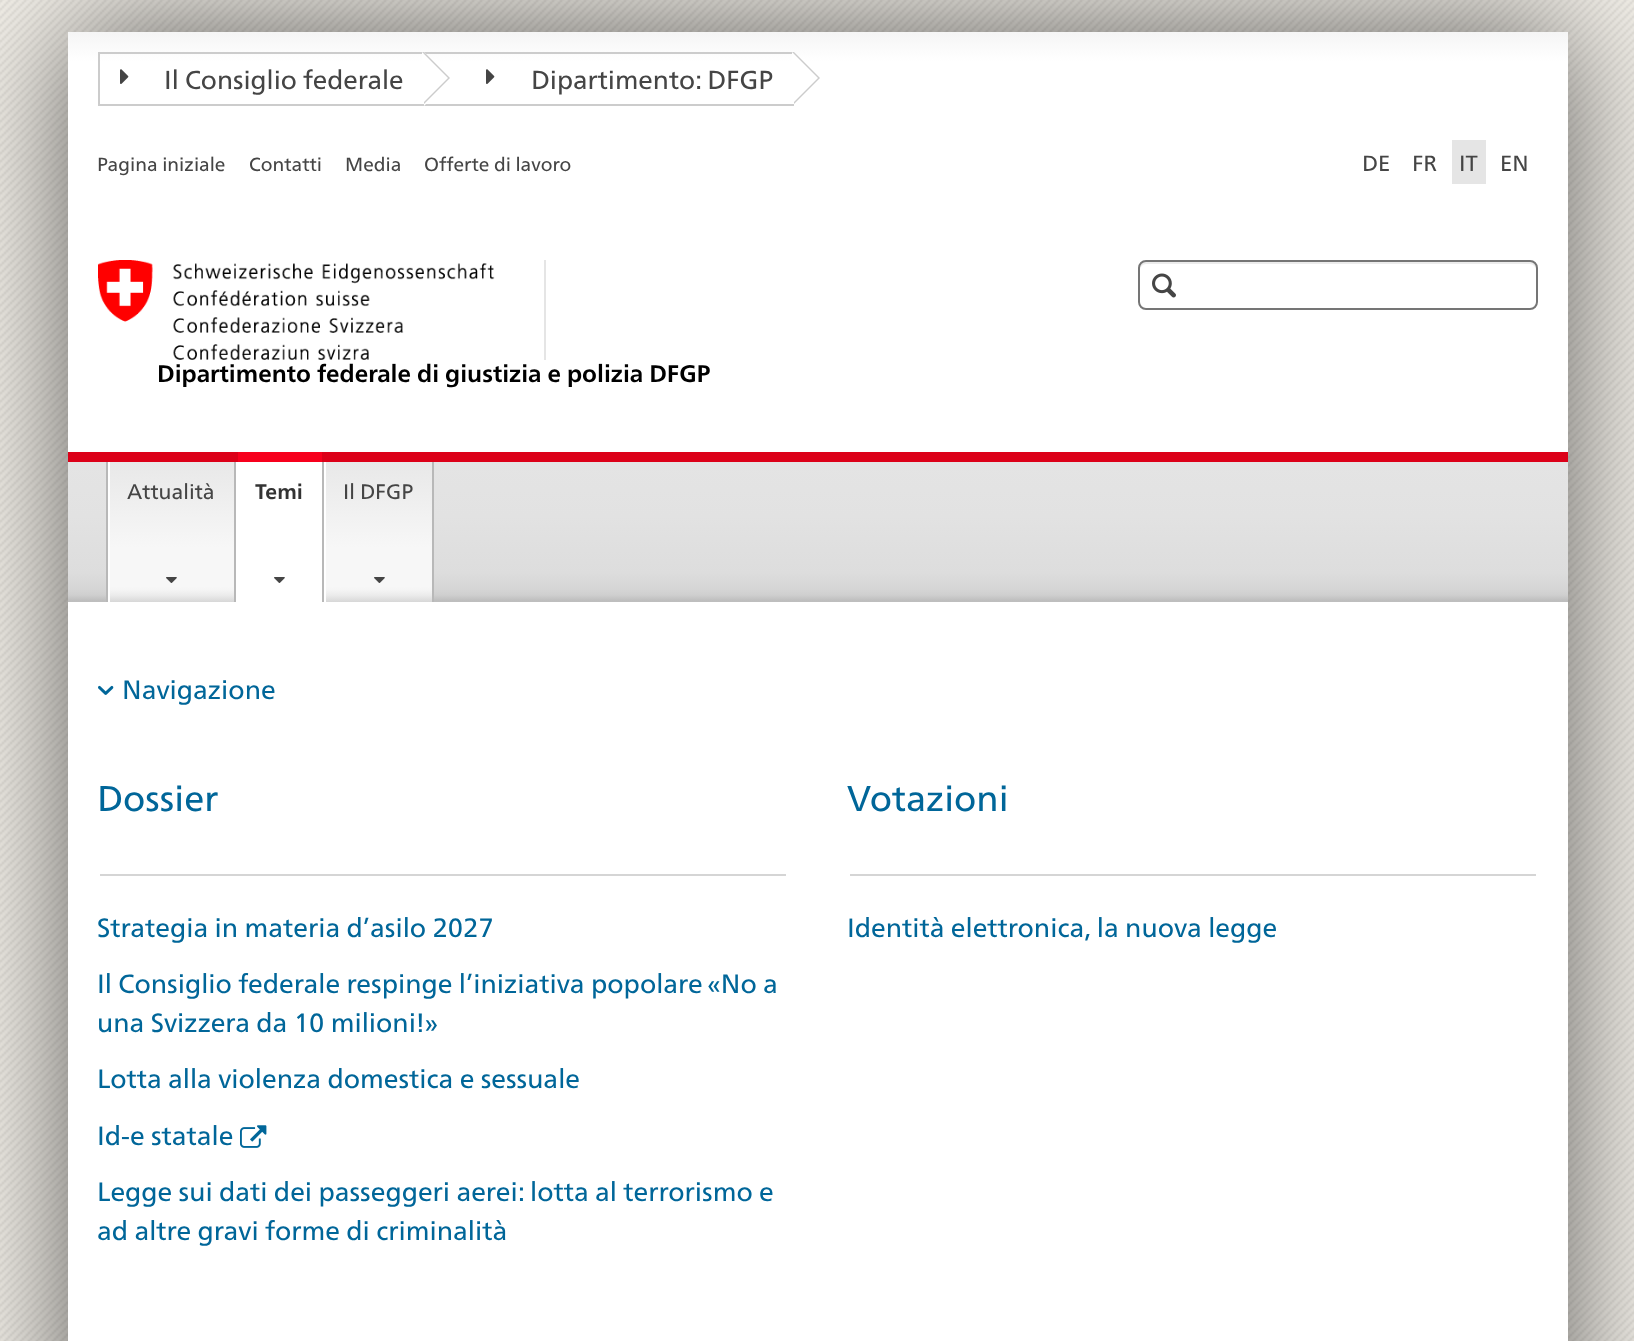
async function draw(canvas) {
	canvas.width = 1634;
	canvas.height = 1341;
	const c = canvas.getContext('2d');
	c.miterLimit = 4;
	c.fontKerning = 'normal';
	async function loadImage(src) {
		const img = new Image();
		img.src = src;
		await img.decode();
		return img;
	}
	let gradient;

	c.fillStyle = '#fff';
	c.fillRect(0, 0, 1634, 1341);
	c.drawImage(await loadImage('img1.png'), 0, 0, 1634, 1341);
	c.fillStyle = '#00000099';
	c.filter = 'blur(60px)';
	c.beginPath();
	c.rect(68, 32, 1500, 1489);
	c.fill();
	c.filter = 'none';
	c.fillStyle = '#fff';
	c.fillRect(68, 602, 1500, 739);
	gradient = c.createLinearGradient(818, 32, 818, 452);
	gradient.addColorStop(0, '#f5f5f5');
	gradient.addColorStop(0.07, '#fff');
	gradient.addColorStop(1, '#fff');
	c.fillStyle = gradient;
	c.fillRect(68, 32, 1500, 420);
	for (const [x, y, w, h, color] of [
		[98, 52, 326, 2, '#ccc'],
		[98, 104, 326, 2, '#ccc'],
		[98, 52, 2, 54, '#ccc'],
	]) {
		c.fillStyle = color;
		c.fillRect(x, y, w, h);
	}
	c.beginPath();
	c.moveTo(424, 104);
	c.lineTo(424, 52);
	c.lineTo(450, 78);
	c.closePath();
	c.fill();
	c.fillStyle = '#fff';
	c.beginPath();
	c.moveTo(422, 104);
	c.lineTo(422, 52);
	c.lineTo(448, 78);
	c.closePath();
	c.fill();
	c.drawImage(await loadImage('img2.png'), 120, 69, 9, 15);
	c.font = '26px "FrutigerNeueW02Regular"';
	c.fillStyle = '#454545';
	c.fillText('Il Consiglio federale', 164, 89);
	c.fillStyle = '#ccc';
	c.beginPath();
	c.moveTo(424, 52);
	c.lineTo(794, 52);
	c.lineTo(794, 54);
	c.lineTo(426, 54);
	c.closePath();
	c.fill();
	c.beginPath();
	c.moveTo(794, 106);
	c.lineTo(424, 106);
	c.lineTo(426, 104);
	c.lineTo(794, 104);
	c.closePath();
	c.fill();
	c.beginPath();
	c.moveTo(794, 104);
	c.lineTo(794, 52);
	c.lineTo(820, 78);
	c.closePath();
	c.fill();
	c.fillStyle = '#fff';
	c.beginPath();
	c.moveTo(792, 104);
	c.lineTo(792, 52);
	c.lineTo(818, 78);
	c.closePath();
	c.fill();
	c.drawImage(await loadImage('img2.png'), 486, 69, 9, 15);
	c.fillStyle = '#454545';
	c.fillText('Dipartimento: DFGP', 531, 89);
	c.font = '19px "FrutigerNeueW02Regular"';
	for (const [text, x, y] of [
		['Pagina iniziale', 97, 171],
		['Contatti', 249, 171],
		['Media', 345, 171],
		['Offerte di lavoro', 424, 171],
	]) {
		c.fillText(text, x, y);
	}
	c.font = '22px "FrutigerNeueW02Regular"';
	c.fillText('DE', 1362, 171);
	c.fillText('FR', 1412, 171);
	c.fillStyle = '#e5e5e5';
	c.fillRect(1452, 140, 34, 44);
	c.fillStyle = '#454545';
	c.fillText('IT', 1459, 171);
	c.fillText('EN', 1500, 171);
	c.fillStyle = '#ececec';
	c.beginPath();
	c.moveTo(1146, 264);
	c.lineTo(1530, 264);
	c.bezierCurveTo(1533, 264, 1536, 267, 1536, 270);
	c.bezierCurveTo(1536, 266, 1535, 262, 1530, 262);
	c.lineTo(1146, 262);
	c.bezierCurveTo(1141, 262, 1140, 266, 1140, 270);
	c.bezierCurveTo(1140, 267, 1143, 264, 1146, 264);
	c.closePath();
	c.fill();
	c.beginPath();
	c.roundRect(1139, 261, 398, 48, 7);
	c.strokeStyle = '#757575';
	c.lineWidth = 2;
	c.stroke();
	c.drawImage(await loadImage('img3.png'), 1152, 273, 24, 25);
	c.fillStyle = '#e5e5e5';
	c.fillRect(544, 260, 2, 100);
	c.drawImage(await loadImage('img4.png'), 98, 260, 397, 100);
	c.font = 'bold 24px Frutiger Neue';
	c.fillStyle = '#000';
	c.fillText('Dipartimento federale di giustizia e polizia DFGP', 157, 382);
	gradient = c.createLinearGradient(818, 462, 818, 602);
	gradient.addColorStop(0, '#e4e4e4');
	gradient.addColorStop(0.39, '#e2e2e2');
	gradient.addColorStop(0.79, '#ddd');
	gradient.addColorStop(0.91, '#d5d5d5');
	gradient.addColorStop(0.95, '#cfcfcf');
	gradient.addColorStop(0.99, '#bebebe');
	c.fillStyle = gradient;
	c.fillRect(68, 462, 1500, 140);
	for (const [x, y, w, h, color] of [
		[68, 452, 1500, 10, '#dc0018'],
		[106, 462, 2, 140, '#b8b8b8'],
		[234, 462, 2, 140, '#b8b8b8'],
		[108, 462, 2, 140, '#fff'],
	]) {
		c.fillStyle = color;
		c.fillRect(x, y, w, h);
	}
	gradient = c.createLinearGradient(172, 462, 172, 602);
	gradient.addColorStop(0, '#e8e8e8');
	gradient.addColorStop(0.61, '#f7f7f7');
	gradient.addColorStop(0.89, '#f7f7f7');
	gradient.addColorStop(0.91, '#f5f5f5');
	gradient.addColorStop(0.95, '#ececec');
	gradient.addColorStop(1, '#d7d7d7');
	c.fillStyle = gradient;
	c.fillRect(110, 462, 124, 140);
	c.font = '21px "FrutigerNeueW02Regular"';
	c.fillStyle = '#454545';
	c.fillText('Attualità', 127, 499);
	c.drawImage(await loadImage('img5.png'), 166, 577, 11, 6);
	for (const [x, y, w, h, color] of [
		[322, 462, 2, 140, '#b8b8b8'],
		[236, 462, 86, 140, '#fff'],
		[238, 452, 84, 10, '#f7001d'],
	]) {
		c.fillStyle = color;
		c.fillRect(x, y, w, h);
	}
	c.font = 'bold 21px Frutiger Neue';
	c.fillStyle = '#333';
	c.fillText('Temi', 255, 499);
	c.drawImage(await loadImage('img6.png'), 274, 577, 11, 6);
	c.fillStyle = '#b8b8b8';
	c.fillRect(432, 462, 2, 140);
	c.fillStyle = '#fff';
	c.fillRect(324, 462, 2, 140);
	gradient = c.createLinearGradient(379, 462, 379, 602);
	gradient.addColorStop(0, '#e8e8e8');
	gradient.addColorStop(0.61, '#f7f7f7');
	gradient.addColorStop(0.89, '#f7f7f7');
	gradient.addColorStop(0.91, '#f5f5f5');
	gradient.addColorStop(0.95, '#ececec');
	gradient.addColorStop(1, '#d7d7d7');
	c.fillStyle = gradient;
	c.fillRect(326, 462, 106, 140);
	c.font = '21px "FrutigerNeueW02Regular"';
	c.fillStyle = '#454545';
	c.fillText('Il DFGP', 343, 499);
	c.drawImage(await loadImage('img5.png'), 374, 577, 11, 6);
	c.drawImage(await loadImage('img7.png'), 98, 685, 16, 10);
	c.font = '26.4px "FrutigerNeueW02Regular"';
	c.fillStyle = '#069';
	c.fillText('Navigazione', 122, 699);
	c.font = '36px "FrutigerNeueW02Regular"';
	c.fillText('Dossier', 97, 811);
	c.fillStyle = '#d5d5d5';
	c.fillRect(100, 874, 686, 2);
	c.font = '26.4px "FrutigerNeueW02Regular"';
	c.fillStyle = '#069';
	for (const [text, x, y] of [
		['Strategia in materia d’asilo 2027', 97, 937],
		['Il Consiglio federale respinge l’iniziativa popolare «No a', 97, 993],
		['una Svizzera da 10 milioni!»', 97, 1032],
		['Lotta alla violenza domestica e sessuale', 97, 1088],
		['Id-e statale', 97, 1145],
	]) {
		c.fillText(text, x, y);
	}
	c.drawImage(await loadImage('img8.png'), 240, 1125, 27, 23);
	c.fillText('Legge sui dati dei passeggeri aerei: lotta al terrorismo e', 97, 1201);
	c.fillText('ad altre gravi forme di criminalità', 97, 1240);
	c.font = '36px "FrutigerNeueW02Regular"';
	c.fillText('Votazioni', 847, 811);
	c.fillStyle = '#d5d5d5';
	c.fillRect(850, 874, 686, 2);
	c.font = '26.4px "FrutigerNeueW02Regular"';
	c.fillStyle = '#069';
	c.fillText('Identità elettronica, la nuova legge', 847, 937);
}

draw(document.querySelector('canvas'));
